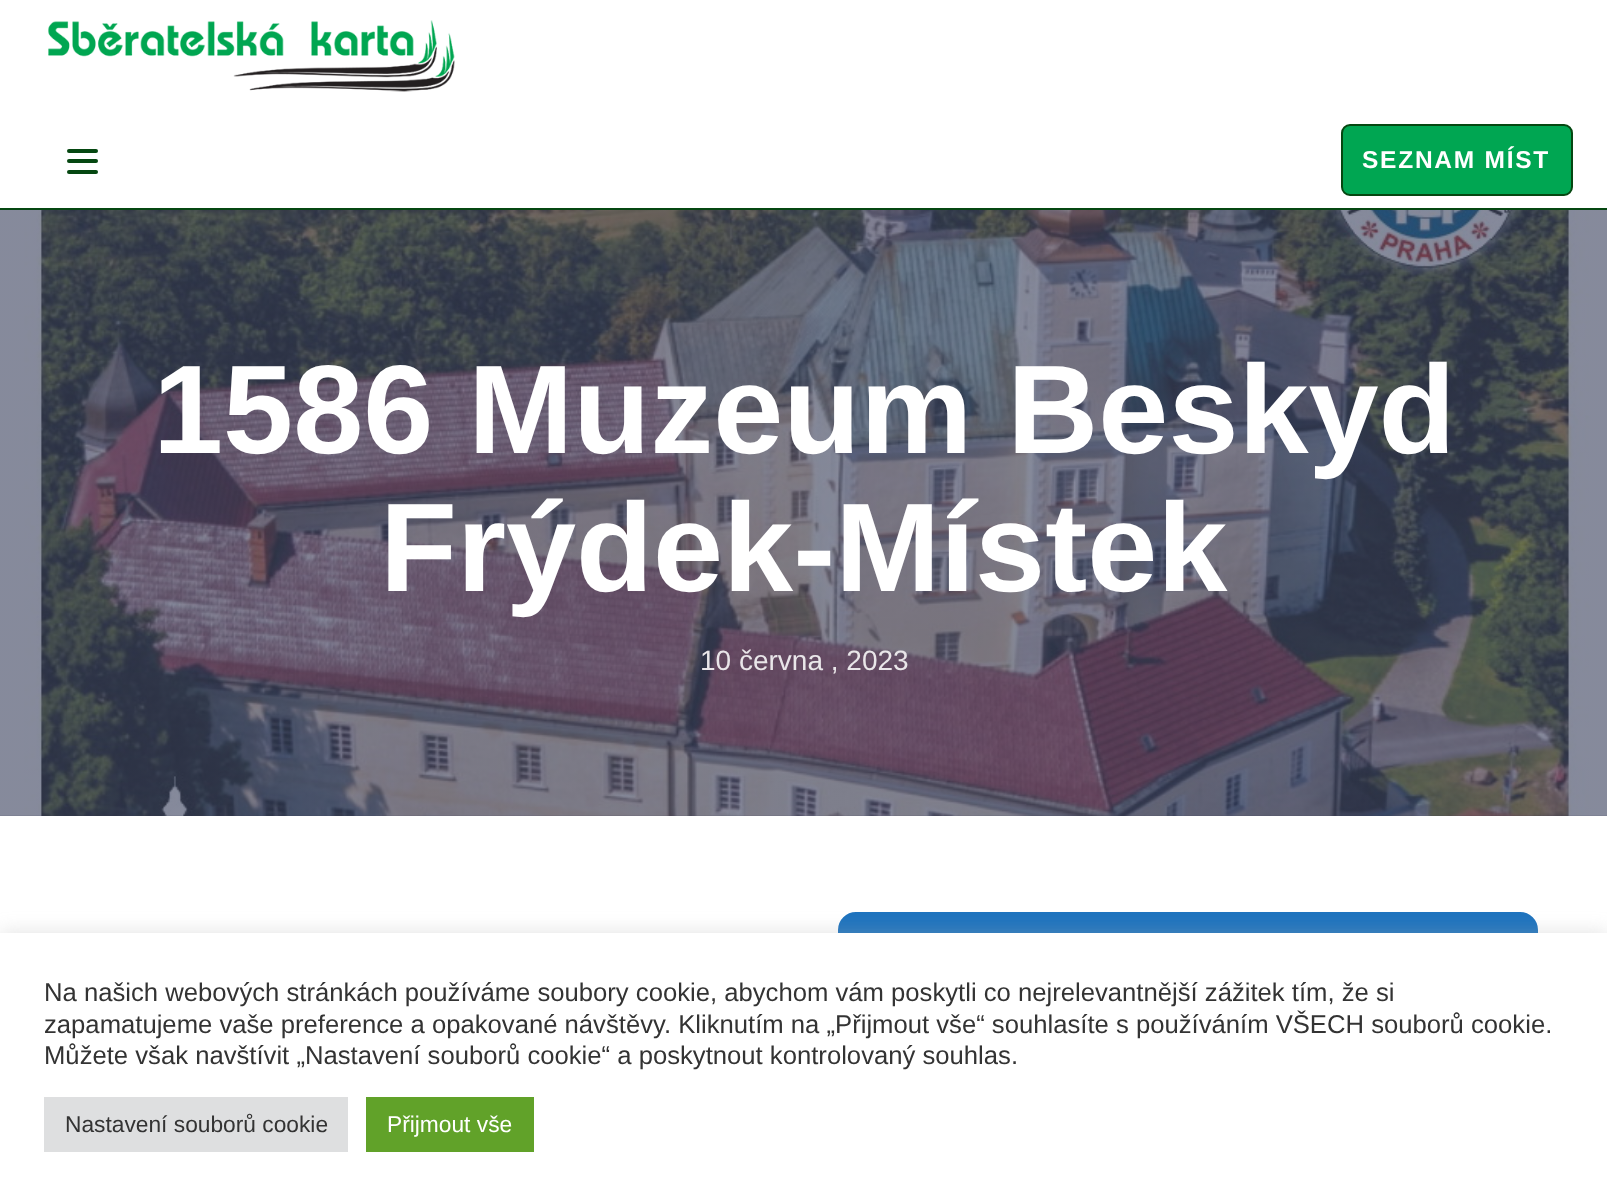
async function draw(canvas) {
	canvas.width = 1607;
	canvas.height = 1203;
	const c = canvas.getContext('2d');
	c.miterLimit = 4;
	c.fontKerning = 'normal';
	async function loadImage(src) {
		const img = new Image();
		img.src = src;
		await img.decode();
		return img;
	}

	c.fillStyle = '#fff';
	c.fillRect(0, 0, 1607, 1203);
	c.drawImage(await loadImage('img1.png'), 48, 20, 407, 72);
	c.fillStyle = '#054711';
	c.fillRect(0, 208, 1607, 2);
	c.beginPath();
	c.roundRect(67, 149, 31, 4, 2);
	c.fill();
	c.beginPath();
	c.roundRect(67, 159, 31, 4, 2);
	c.fill();
	c.beginPath();
	c.roundRect(67, 170, 31, 4, 2);
	c.fill();
	c.fillStyle = '#00a652';
	c.beginPath();
	c.roundRect(1342, 125, 230, 70, 8);
	c.fill();
	c.strokeStyle = '#054711';
	c.lineWidth = 2;
	c.stroke();
	c.letterSpacing = '1.75px';
	c.font = 'bold 24.5px Liberation Sans';
	c.fillStyle = '#fff';
	c.fillText('SEZNAM MÍST', 1362, 168);
	c.fillStyle = '#353c59';
	c.fillRect(0, 815, 1607, 1);
	c.drawImage(await loadImage('img2.png'), 0, 210, 1607, 606);
	c.letterSpacing = '0px';
	c.font = 'bold 126px Liberation Sans';
	c.fillStyle = '#fff';
	c.fillText('1586 Muzeum Beskyd', 153, 453);
	c.fillText('Frýdek-Místek', 380, 591);
	c.font = '28px Liberation Sans';
	c.fillStyle = '#e9e6e9';
	c.fillText('10 června , 2023', 700, 670);
	c.fillStyle = '#1e73be';
	c.beginPath();
	c.roundRect(839, 913, 698, 80, 17);
	c.fill();
	c.strokeStyle = '#1e73be';
	c.stroke();
	c.fillStyle = '#acabab4d';
	c.filter = 'blur(9px)';
	c.beginPath();
	c.rect(0, 931, 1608, 271);
	c.fill();
	c.filter = 'none';
	c.fillStyle = '#fff';
	c.fillRect(0, 933, 1607, 270);
	c.font = '25.67px Liberation Sans';
	c.fillStyle = '#333';
	for (const [text, x, y] of [
		['Na našich webových stránkách používáme soubory cookie, abychom vám poskytli co nejrelevantnější zážitek tím, že si', 44, 1001],
		['zapamatujeme vaše preference a opakované návštěvy. Kliknutím na „Přijmout vše“ souhlasíte s používáním VŠECH souborů cookie.', 44, 1033],
		['Můžete však navštívit „Nastavení souborů cookie“ a poskytnout kontrolovaný souhlas.', 44, 1064],
	]) {
		c.fillText(text, x, y);
	}
	c.fillStyle = '#dedfe0';
	c.fillRect(44, 1097, 304, 55);
	c.font = '22.75px Liberation Sans';
	c.fillStyle = '#333';
	c.fillText('Nastavení souborů cookie', 65, 1132);
	c.fillStyle = '#61a229';
	c.fillRect(366, 1097, 168, 55);
	c.fillStyle = '#fff';
	c.fillText('Přijmout vše', 387, 1132);
}

draw(document.querySelector('canvas'));
